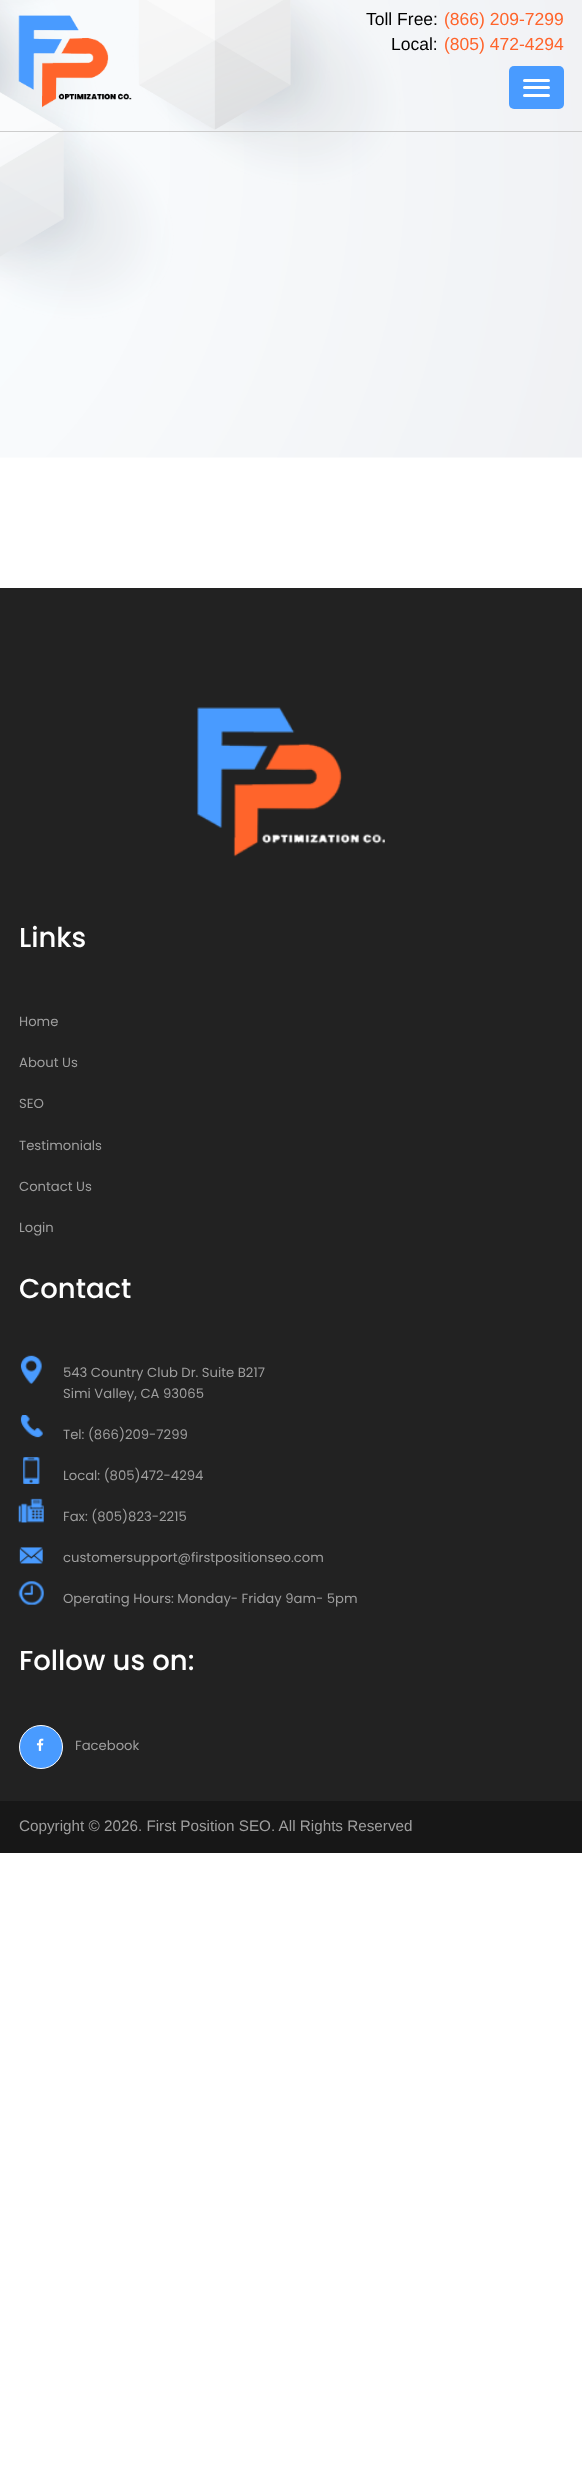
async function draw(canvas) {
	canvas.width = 582;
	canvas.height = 2490;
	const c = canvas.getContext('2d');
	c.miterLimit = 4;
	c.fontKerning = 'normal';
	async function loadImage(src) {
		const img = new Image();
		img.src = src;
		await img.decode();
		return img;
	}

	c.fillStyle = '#fff';
	c.fillRect(0, 0, 582, 2490);
	c.drawImage(await loadImage('img1.png'), 0, 0, 582, 458);
	c.fillStyle = '#cdcdcd';
	c.fillRect(0, 131, 582, 1);
	c.drawImage(await loadImage('img2.png'), 18, 15, 114, 93);
	c.font = '17.5px Arimo';
	c.fillStyle = '#000';
	c.fillText('Toll Free:', 366, 25);
	c.fillStyle = '#ff642b';
	c.fillText('(866) 209-7299', 444, 25);
	c.fillStyle = '#000';
	c.fillText('Local:', 391, 50);
	c.fillStyle = '#ff642b';
	c.fillText('(805) 472-4294', 444, 50);
	c.fillStyle = '#499bff';
	c.beginPath();
	c.roundRect(509, 66, 55, 43, 5);
	c.fill();
	c.fillStyle = '#fff';
	c.beginPath();
	c.roundRect(523, 79, 27, 3, 1.5);
	c.fill();
	c.beginPath();
	c.roundRect(523, 86, 27, 3, 1.5);
	c.fill();
	c.beginPath();
	c.roundRect(523, 94, 27, 3, 1.5);
	c.fill();
	c.fillStyle = '#222';
	c.fillRect(0, 588, 582, 1213);
	c.drawImage(await loadImage('img3.png'), 197, 707, 188, 150);
	c.font = '500 27.5px Poppins';
	c.fillStyle = '#fff';
	c.fillText('Links', 19, 947);
	c.font = '13.2px Poppins';
	c.fillStyle = '#9e9e9e';
	for (const [text, x, y] of [
		['Home', 19, 1026],
		['About Us', 19, 1067],
		['SEO', 19, 1108],
		['Testimonials', 19, 1150],
		['Contact Us', 19, 1191],
		['Login', 19, 1232],
	]) {
		c.fillText(text, x, y);
	}
	c.font = '500 27.5px Poppins';
	c.fillStyle = '#fff';
	c.fillText('Contact', 19, 1298);
	c.drawImage(await loadImage('img4.png'), 20, 1355, 22, 29);
	c.font = '13.2px Poppins';
	c.fillStyle = '#9e9e9e';
	c.fillText('543 Country Club Dr. Suite B217', 63, 1377);
	c.fillText('Simi Valley, CA 93065', 63, 1398);
	c.drawImage(await loadImage('img5.png'), 20, 1415, 23, 23);
	c.fillText('Tel: (866)209-7299', 63, 1439);
	c.drawImage(await loadImage('img6.png'), 23, 1457, 17, 27);
	c.fillText('Local: (805)472-4294', 63, 1480);
	c.drawImage(await loadImage('img7.png'), 18, 1498, 26, 25);
	c.fillText('Fax: (805)823-2215', 63, 1521);
	c.drawImage(await loadImage('img8.png'), 19, 1547, 24, 17);
	c.fillText('customersupport@firstpositionseo.com', 63, 1562);
	c.drawImage(await loadImage('img9.png'), 18, 1581, 26, 24);
	c.fillText('Operating Hours: Monday- Friday 9am- 5pm', 63, 1603);
	c.font = '500 27.5px Poppins';
	c.fillStyle = '#fff';
	c.fillText('Follow us on:', 19, 1670);
	c.fillStyle = '#499bff';
	c.beginPath();
	c.arc(41, 1747, 21.5, 0, 2 * Math.PI);
	c.fill();
	c.strokeStyle = '#fff';
	c.stroke();
	c.drawImage(await loadImage('img10.png'), 36, 1738, 8, 13);
	c.font = '13.2px Poppins';
	c.fillStyle = '#9e9e9e';
	c.fillText('Facebook', 75, 1750);
	c.fillStyle = '#171717';
	c.fillRect(0, 1801, 582, 52);
	c.font = '15.25px Arimo';
	c.fillStyle = '#9e9e9e';
	c.fillText('Copyright © 2026. First Position SEO. All Rights Reserved', 19, 1831);
}

draw(document.querySelector('canvas'));
